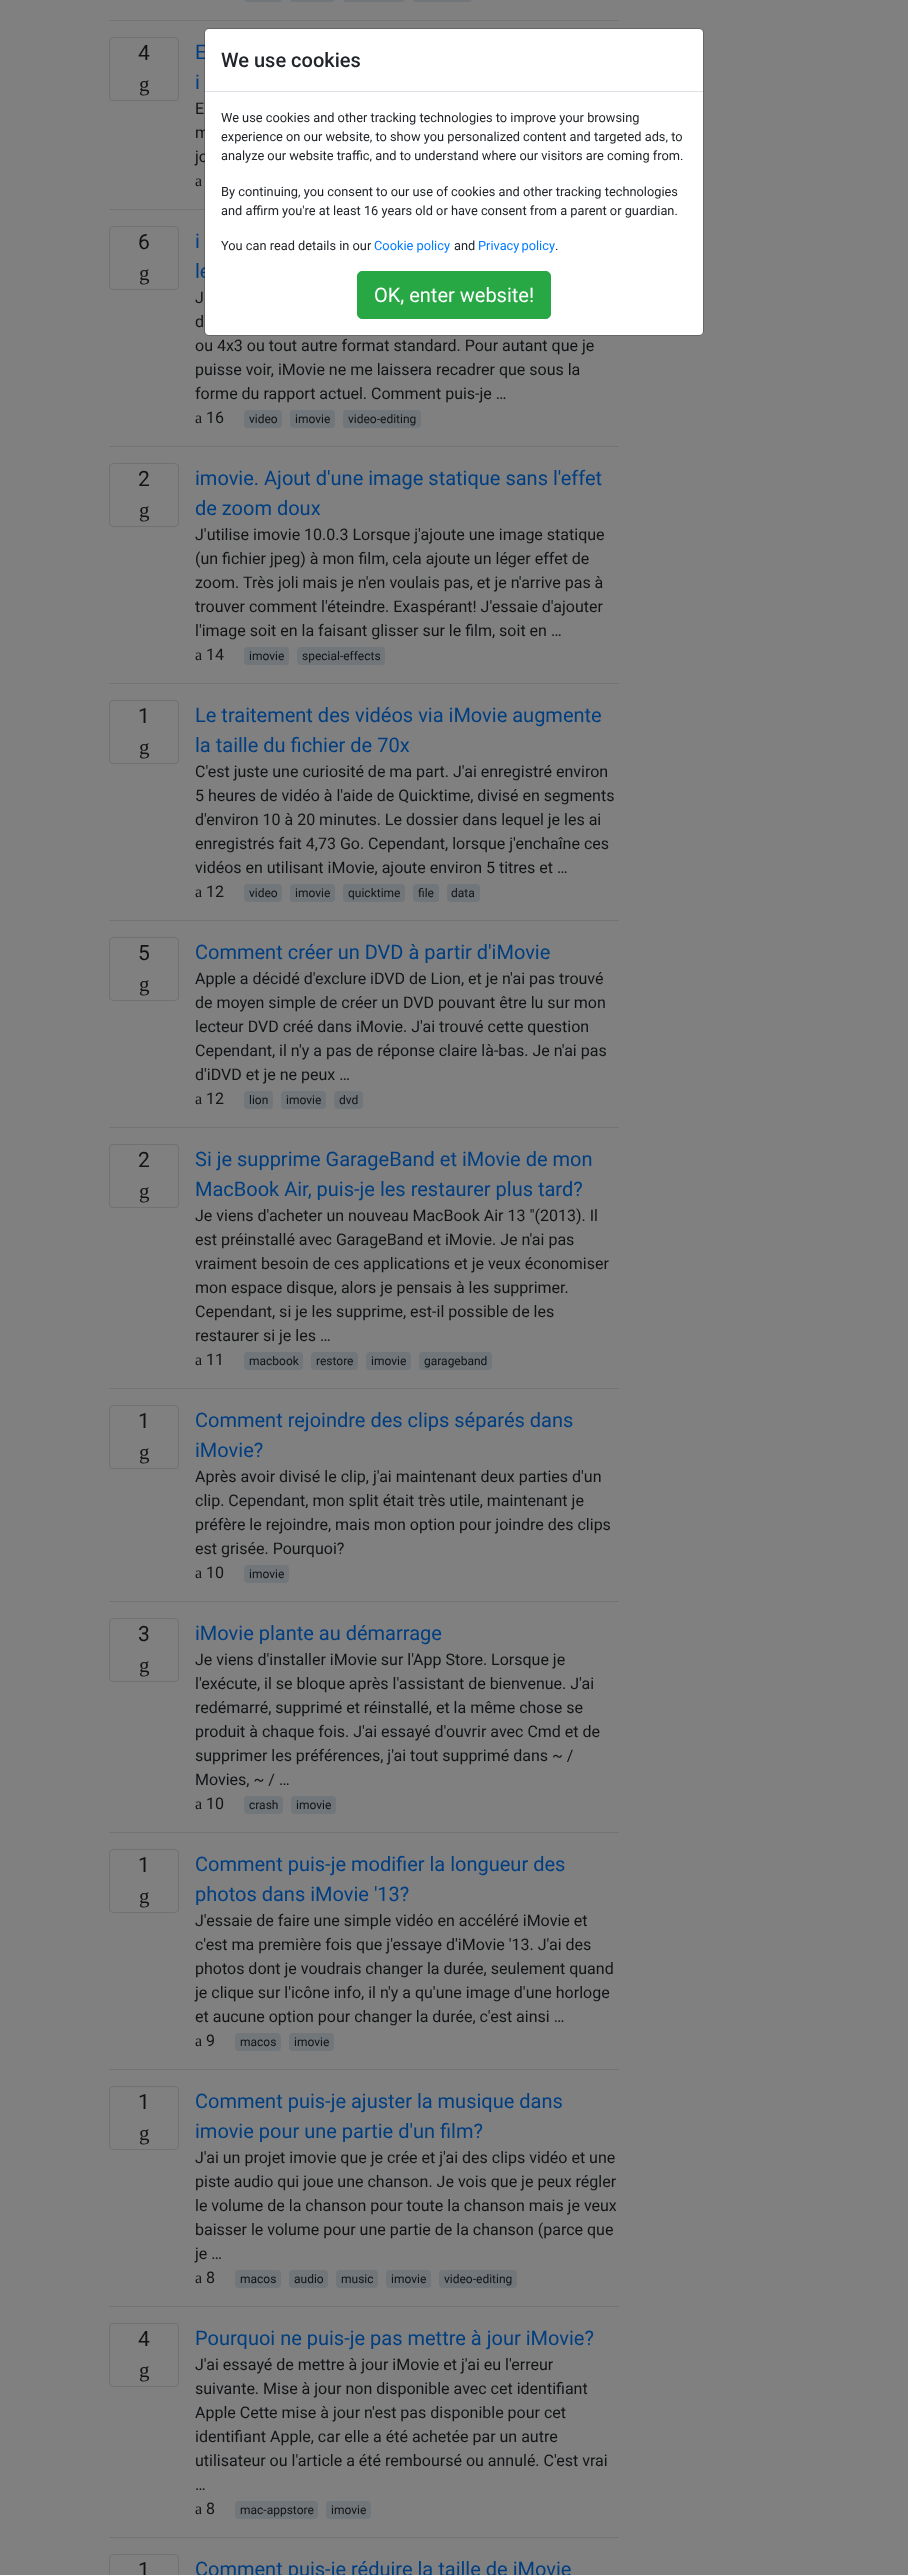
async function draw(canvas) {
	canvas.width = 908;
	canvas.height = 2575;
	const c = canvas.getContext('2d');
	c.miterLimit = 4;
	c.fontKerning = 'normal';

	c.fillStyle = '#808080';
	c.fillRect(0, 0, 908, 2575);
	c.fillStyle = '#71767a';
	c.beginPath();
	c.roundRect(244, -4, 38, 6, 4);
	c.fill();
	c.beginPath();
	c.roundRect(290, -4, 45, 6, 4);
	c.fill();
	c.beginPath();
	c.roundRect(343, -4, 62, 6, 4);
	c.fill();
	c.beginPath();
	c.roundRect(413, -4, 59, 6, 4);
	c.fill();
	c.fillStyle = '#737373';
	c.fillRect(109, 20, 510, 1);
	c.beginPath();
	c.roundRect(109.5, 37.5, 69, 63, 3.5);
	c.strokeStyle = '#6f7173';
	c.stroke();
	c.font = '21px Roboto';
	c.fillStyle = '#111315';
	c.fillText('4', 138, 60);
	c.font = '21px Liberation Serif';
	c.fillText('g', 139, 91);
	c.font = '20px Roboto';
	c.fillStyle = '#003e80';
	c.fillText('E', 195, 59);
	c.fillText('i', 195, 89);
	c.font = '16px Roboto';
	c.fillStyle = '#111315';
	for (const [text, x, y] of [
		['E', 195, 114],
		['m', 195, 138],
		['jo', 195, 162],
	]) {
		c.fillText(text, x, y);
	}
	c.font = '16px Liberation Serif';
	c.fillText('a', 195, 186);
	c.fillStyle = '#737373';
	c.fillRect(109, 209, 96, 1);
	c.beginPath();
	c.roundRect(109.5, 226.5, 69, 63, 3.5);
	c.stroke();
	c.font = '21px Roboto';
	c.fillStyle = '#111315';
	c.fillText('6', 138, 249);
	c.font = '21px Liberation Serif';
	c.fillText('g', 139, 280);
	c.font = '20px Roboto';
	c.fillStyle = '#003e80';
	c.fillText('i', 195, 248);
	c.fillText('le', 195, 278);
	c.font = '16px Roboto';
	c.fillStyle = '#111315';
	for (const [text, x, y] of [
		['J', 195, 303],
		['d', 195, 327],
		['ou 4x3 ou tout autre format standard. Pour autant que je', 195, 351],
		['puisse voir, iMovie ne me laissera recadrer que sous la', 195, 375],
		['forme du rapport actuel. Comment puis-je …', 195, 399],
	]) {
		c.fillText(text, x, y);
	}
	c.font = '16px Liberation Serif';
	c.fillText('a', 195, 423);
	c.font = '16px Roboto';
	c.fillText('16', 206, 423);
	c.fillStyle = '#71767a';
	c.beginPath();
	c.roundRect(244, 410, 38, 18, 4);
	c.fill();
	c.font = '12px Roboto';
	c.fillStyle = '#111315';
	c.fillText('video', 249, 423);
	c.fillStyle = '#71767a';
	c.beginPath();
	c.roundRect(290, 410, 45, 18, 4);
	c.fill();
	c.fillStyle = '#111315';
	c.fillText('imovie', 295, 423);
	c.fillStyle = '#71767a';
	c.beginPath();
	c.roundRect(343, 410, 78, 18, 4);
	c.fill();
	c.fillStyle = '#111315';
	c.fillText('video-editing', 348, 423);
	c.fillStyle = '#737373';
	c.fillRect(109, 446, 510, 1);
	c.beginPath();
	c.roundRect(109.5, 463.5, 69, 63, 3.5);
	c.stroke();
	c.font = '21px Roboto';
	c.fillStyle = '#111315';
	c.fillText('2', 138, 486);
	c.font = '21px Liberation Serif';
	c.fillText('g', 139, 517);
	c.font = '20px Roboto';
	c.fillStyle = '#003e80';
	c.fillText('imovie. Ajout d\'une image statique sans l\'effet', 195, 485);
	c.fillText('de zoom doux', 195, 515);
	c.font = '16px Roboto';
	c.fillStyle = '#111315';
	for (const [text, x, y] of [
		['J\'utilise imovie 10.0.3 Lorsque j\'ajoute une image statique', 195, 540],
		['(un fichier jpeg) à mon film, cela ajoute un léger effet de', 195, 564],
		['zoom. Très joli mais je n\'en voulais pas, et je n\'arrive pas à', 195, 588],
		['trouver comment l\'éteindre. Exaspérant! J\'essaie d\'ajouter', 195, 612],
		['l\'image soit en la faisant glisser sur le film, soit en …', 195, 636],
	]) {
		c.fillText(text, x, y);
	}
	c.font = '16px Liberation Serif';
	c.fillText('a', 195, 660);
	c.font = '16px Roboto';
	c.fillText('14', 206, 660);
	c.fillStyle = '#71767a';
	c.beginPath();
	c.roundRect(244, 647, 45, 18, 4);
	c.fill();
	c.font = '12px Roboto';
	c.fillStyle = '#111315';
	c.fillText('imovie', 249, 660);
	c.fillStyle = '#71767a';
	c.beginPath();
	c.roundRect(297, 647, 88, 18, 4);
	c.fill();
	c.fillStyle = '#111315';
	c.fillText('special-effects', 302, 660);
	c.fillStyle = '#737373';
	c.fillRect(109, 683, 510, 1);
	c.beginPath();
	c.roundRect(109.5, 700.5, 69, 63, 3.5);
	c.stroke();
	c.font = '21px Roboto';
	c.fillStyle = '#111315';
	c.fillText('1', 138, 723);
	c.font = '21px Liberation Serif';
	c.fillText('g', 139, 754);
	c.font = '20px Roboto';
	c.fillStyle = '#003e80';
	c.fillText('Le traitement des vidéos via iMovie augmente', 195, 722);
	c.fillText('la taille du fichier de 70x', 195, 752);
	c.font = '16px Roboto';
	c.fillStyle = '#111315';
	for (const [text, x, y] of [
		['C\'est juste une curiosité de ma part. J\'ai enregistré environ', 195, 777],
		['5 heures de vidéo à l\'aide de Quicktime, divisé en segments', 195, 801],
		['d\'environ 10 à 20 minutes. Le dossier dans lequel je les ai', 195, 825],
		['enregistrés fait 4,73 Go. Cependant, lorsque j\'enchaîne ces', 195, 849],
		['vidéos en utilisant iMovie, ajoute environ 5 titres et …', 195, 873],
	]) {
		c.fillText(text, x, y);
	}
	c.font = '16px Liberation Serif';
	c.fillText('a', 195, 897);
	c.font = '16px Roboto';
	c.fillText('12', 206, 897);
	c.fillStyle = '#71767a';
	c.beginPath();
	c.roundRect(244, 884, 38, 18, 4);
	c.fill();
	c.font = '12px Roboto';
	c.fillStyle = '#111315';
	c.fillText('video', 249, 897);
	c.fillStyle = '#71767a';
	c.beginPath();
	c.roundRect(290, 884, 45, 18, 4);
	c.fill();
	c.fillStyle = '#111315';
	c.fillText('imovie', 295, 897);
	c.fillStyle = '#71767a';
	c.beginPath();
	c.roundRect(343, 884, 62, 18, 4);
	c.fill();
	c.fillStyle = '#111315';
	c.fillText('quicktime', 348, 897);
	c.fillStyle = '#71767a';
	c.beginPath();
	c.roundRect(413, 884, 26, 18, 4);
	c.fill();
	c.fillStyle = '#111315';
	c.fillText('file', 418, 897);
	c.fillStyle = '#71767a';
	c.beginPath();
	c.roundRect(447, 884, 33, 18, 4);
	c.fill();
	c.fillStyle = '#111315';
	c.fillText('data', 451, 897);
	c.fillStyle = '#737373';
	c.fillRect(109, 920, 510, 1);
	c.beginPath();
	c.roundRect(109.5, 937.5, 69, 63, 3.5);
	c.stroke();
	c.font = '21px Roboto';
	c.fillStyle = '#111315';
	c.fillText('5', 138, 960);
	c.font = '21px Liberation Serif';
	c.fillText('g', 139, 991);
	c.font = '20px Roboto';
	c.fillStyle = '#003e80';
	c.fillText('Comment créer un DVD à partir d\'iMovie', 195, 959);
	c.font = '16px Roboto';
	c.fillStyle = '#111315';
	for (const [text, x, y] of [
		['Apple a décidé d\'exclure iDVD de Lion, et je n\'ai pas trouvé', 195, 984],
		['de moyen simple de créer un DVD pouvant être lu sur mon', 195, 1008],
		['lecteur DVD créé dans iMovie. J\'ai trouvé cette question', 195, 1032],
		['Cependant, il n\'y a pas de réponse claire là-bas. Je n\'ai pas', 195, 1056],
		['d\'iDVD et je ne peux …', 195, 1080],
	]) {
		c.fillText(text, x, y);
	}
	c.font = '16px Liberation Serif';
	c.fillText('a', 195, 1104);
	c.font = '16px Roboto';
	c.fillText('12', 206, 1104);
	c.fillStyle = '#71767a';
	c.beginPath();
	c.roundRect(244, 1091, 29, 18, 4);
	c.fill();
	c.font = '12px Roboto';
	c.fillStyle = '#111315';
	c.fillText('lion', 249, 1104);
	c.fillStyle = '#71767a';
	c.beginPath();
	c.roundRect(281, 1091, 45, 18, 4);
	c.fill();
	c.fillStyle = '#111315';
	c.fillText('imovie', 286, 1104);
	c.fillStyle = '#71767a';
	c.beginPath();
	c.roundRect(334, 1091, 29, 18, 4);
	c.fill();
	c.fillStyle = '#111315';
	c.fillText('dvd', 339, 1104);
	c.fillStyle = '#737373';
	c.fillRect(109, 1127, 510, 1);
	c.beginPath();
	c.roundRect(109.5, 1144.5, 69, 63, 3.5);
	c.stroke();
	c.font = '21px Roboto';
	c.fillStyle = '#111315';
	c.fillText('2', 138, 1167);
	c.font = '21px Liberation Serif';
	c.fillText('g', 139, 1198);
	c.font = '20px Roboto';
	c.fillStyle = '#003e80';
	c.fillText('Si je supprime GarageBand et iMovie de mon', 195, 1166);
	c.fillText('MacBook Air, puis-je les restaurer plus tard?', 195, 1196);
	c.font = '16px Roboto';
	c.fillStyle = '#111315';
	for (const [text, x, y] of [
		['Je viens d\'acheter un nouveau MacBook Air 13 "(2013). Il', 195, 1221],
		['est préinstallé avec GarageBand et iMovie. Je n\'ai pas', 195, 1245],
		['vraiment besoin de ces applications et je veux économiser', 195, 1269],
		['mon espace disque, alors je pensais à les supprimer.', 195, 1293],
		['Cependant, si je les supprime, est-il possible de les', 195, 1317],
		['restaurer si je les …', 195, 1341],
	]) {
		c.fillText(text, x, y);
	}
	c.font = '16px Liberation Serif';
	c.fillText('a', 195, 1365);
	c.font = '16px Roboto';
	c.fillText('11', 206, 1365);
	c.fillStyle = '#71767a';
	c.beginPath();
	c.roundRect(244, 1352, 59, 18, 4);
	c.fill();
	c.font = '12px Roboto';
	c.fillStyle = '#111315';
	c.fillText('macbook', 249, 1365);
	c.fillStyle = '#71767a';
	c.beginPath();
	c.roundRect(311, 1352, 47, 18, 4);
	c.fill();
	c.fillStyle = '#111315';
	c.fillText('restore', 316, 1365);
	c.fillStyle = '#71767a';
	c.beginPath();
	c.roundRect(366, 1352, 45, 18, 4);
	c.fill();
	c.fillStyle = '#111315';
	c.fillText('imovie', 371, 1365);
	c.fillStyle = '#71767a';
	c.beginPath();
	c.roundRect(419, 1352, 73, 18, 4);
	c.fill();
	c.fillStyle = '#111315';
	c.fillText('garageband', 424, 1365);
	c.fillStyle = '#737373';
	c.fillRect(109, 1388, 510, 1);
	c.beginPath();
	c.roundRect(109.5, 1405.5, 69, 63, 3.5);
	c.stroke();
	c.font = '21px Roboto';
	c.fillStyle = '#111315';
	c.fillText('1', 138, 1428);
	c.font = '21px Liberation Serif';
	c.fillText('g', 139, 1459);
	c.font = '20px Roboto';
	c.fillStyle = '#003e80';
	c.fillText('Comment rejoindre des clips séparés dans', 195, 1427);
	c.fillText('iMovie?', 195, 1457);
	c.font = '16px Roboto';
	c.fillStyle = '#111315';
	for (const [text, x, y] of [
		['Après avoir divisé le clip, j\'ai maintenant deux parties d\'un', 195, 1482],
		['clip. Cependant, mon split était très utile, maintenant je', 195, 1506],
		['préfère le rejoindre, mais mon option pour joindre des clips', 195, 1530],
		['est grisée. Pourquoi?', 195, 1554],
	]) {
		c.fillText(text, x, y);
	}
	c.font = '16px Liberation Serif';
	c.fillText('a', 195, 1578);
	c.font = '16px Roboto';
	c.fillText('10', 206, 1578);
	c.fillStyle = '#71767a';
	c.beginPath();
	c.roundRect(244, 1565, 45, 18, 4);
	c.fill();
	c.font = '12px Roboto';
	c.fillStyle = '#111315';
	c.fillText('imovie', 249, 1578);
	c.fillStyle = '#737373';
	c.fillRect(109, 1601, 510, 1);
	c.beginPath();
	c.roundRect(109.5, 1618.5, 69, 63, 3.5);
	c.stroke();
	c.font = '21px Roboto';
	c.fillStyle = '#111315';
	c.fillText('3', 138, 1641);
	c.font = '21px Liberation Serif';
	c.fillText('g', 139, 1672);
	c.font = '20px Roboto';
	c.fillStyle = '#003e80';
	c.fillText('iMovie plante au démarrage', 195, 1640);
	c.font = '16px Roboto';
	c.fillStyle = '#111315';
	for (const [text, x, y] of [
		['Je viens d\'installer iMovie sur l\'App Store. Lorsque je', 195, 1665],
		['l\'exécute, il se bloque après l\'assistant de bienvenue. J\'ai', 195, 1689],
		['redémarré, supprimé et réinstallé, et la même chose se', 195, 1713],
		['produit à chaque fois. J\'ai essayé d\'ouvrir avec Cmd et de', 195, 1737],
		['supprimer les préférences, j\'ai tout supprimé dans ~ /', 195, 1761],
		['Movies, ~ / …', 195, 1785],
	]) {
		c.fillText(text, x, y);
	}
	c.font = '16px Liberation Serif';
	c.fillText('a', 195, 1809);
	c.font = '16px Roboto';
	c.fillText('10', 206, 1809);
	c.fillStyle = '#71767a';
	c.beginPath();
	c.roundRect(244, 1796, 39, 18, 4);
	c.fill();
	c.font = '12px Roboto';
	c.fillStyle = '#111315';
	c.fillText('crash', 249, 1809);
	c.fillStyle = '#71767a';
	c.beginPath();
	c.roundRect(291, 1796, 45, 18, 4);
	c.fill();
	c.fillStyle = '#111315';
	c.fillText('imovie', 296, 1809);
	c.fillStyle = '#737373';
	c.fillRect(109, 1832, 510, 1);
	c.beginPath();
	c.roundRect(109.5, 1849.5, 69, 63, 3.5);
	c.stroke();
	c.font = '21px Roboto';
	c.fillStyle = '#111315';
	c.fillText('1', 138, 1872);
	c.font = '21px Liberation Serif';
	c.fillText('g', 139, 1903);
	c.font = '20px Roboto';
	c.fillStyle = '#003e80';
	c.fillText('Comment puis-je modifier la longueur des', 195, 1871);
	c.fillText('photos dans iMovie \'13?', 195, 1901);
	c.font = '16px Roboto';
	c.fillStyle = '#111315';
	for (const [text, x, y] of [
		['J\'essaie de faire une simple vidéo en accéléré iMovie et', 195, 1926],
		['c\'est ma première fois que j\'essaye d\'iMovie \'13. J\'ai des', 195, 1950],
		['photos dont je voudrais changer la durée, seulement quand', 195, 1974],
		['je clique sur l\'icône info, il n\'y a qu\'une image d\'une horloge', 195, 1998],
		['et aucune option pour changer la durée, c\'est ainsi …', 195, 2022],
	]) {
		c.fillText(text, x, y);
	}
	c.font = '16px Liberation Serif';
	c.fillText('a', 195, 2046);
	c.font = '16px Roboto';
	c.fillText('9', 206, 2046);
	c.fillStyle = '#71767a';
	c.beginPath();
	c.roundRect(235, 2033, 46, 18, 4);
	c.fill();
	c.font = '12px Roboto';
	c.fillStyle = '#111315';
	c.fillText('macos', 240, 2046);
	c.fillStyle = '#71767a';
	c.beginPath();
	c.roundRect(289, 2033, 45, 18, 4);
	c.fill();
	c.fillStyle = '#111315';
	c.fillText('imovie', 294, 2046);
	c.fillStyle = '#737373';
	c.fillRect(109, 2069, 510, 1);
	c.beginPath();
	c.roundRect(109.5, 2086.5, 69, 63, 3.5);
	c.stroke();
	c.font = '21px Roboto';
	c.fillStyle = '#111315';
	c.fillText('1', 138, 2109);
	c.font = '21px Liberation Serif';
	c.fillText('g', 139, 2140);
	c.font = '20px Roboto';
	c.fillStyle = '#003e80';
	c.fillText('Comment puis-je ajuster la musique dans', 195, 2108);
	c.fillText('imovie pour une partie d\'un film?', 195, 2138);
	c.font = '16px Roboto';
	c.fillStyle = '#111315';
	for (const [text, x, y] of [
		['J\'ai un projet imovie que je crée et j\'ai des clips vidéo et une', 195, 2163],
		['piste audio qui joue une chanson. Je vois que je peux régler', 195, 2187],
		['le volume de la chanson pour toute la chanson mais je veux', 195, 2211],
		['baisser le volume pour une partie de la chanson (parce que', 195, 2235],
		['je …', 195, 2259],
	]) {
		c.fillText(text, x, y);
	}
	c.font = '16px Liberation Serif';
	c.fillText('a', 195, 2283);
	c.font = '16px Roboto';
	c.fillText('8', 206, 2283);
	c.fillStyle = '#71767a';
	c.beginPath();
	c.roundRect(235, 2270, 46, 18, 4);
	c.fill();
	c.font = '12px Roboto';
	c.fillStyle = '#111315';
	c.fillText('macos', 240, 2283);
	c.fillStyle = '#71767a';
	c.beginPath();
	c.roundRect(289, 2270, 39, 18, 4);
	c.fill();
	c.fillStyle = '#111315';
	c.fillText('audio', 294, 2283);
	c.fillStyle = '#71767a';
	c.beginPath();
	c.roundRect(336, 2270, 42, 18, 4);
	c.fill();
	c.fillStyle = '#111315';
	c.fillText('music', 341, 2283);
	c.fillStyle = '#71767a';
	c.beginPath();
	c.roundRect(386, 2270, 45, 18, 4);
	c.fill();
	c.fillStyle = '#111315';
	c.fillText('imovie', 391, 2283);
	c.fillStyle = '#71767a';
	c.beginPath();
	c.roundRect(439, 2270, 78, 18, 4);
	c.fill();
	c.fillStyle = '#111315';
	c.fillText('video-editing', 444, 2283);
	c.fillStyle = '#737373';
	c.fillRect(109, 2306, 510, 1);
	c.beginPath();
	c.roundRect(109.5, 2323.5, 69, 63, 3.5);
	c.stroke();
	c.font = '21px Roboto';
	c.fillStyle = '#111315';
	c.fillText('4', 138, 2346);
	c.font = '21px Liberation Serif';
	c.fillText('g', 139, 2377);
	c.font = '20px Roboto';
	c.fillStyle = '#003e80';
	c.fillText('Pourquoi ne puis-je pas mettre à jour iMovie?', 195, 2345);
	c.font = '16px Roboto';
	c.fillStyle = '#111315';
	for (const [text, x, y] of [
		['J\'ai essayé de mettre à jour iMovie et j\'ai eu l\'erreur', 195, 2370],
		['suivante. Mise à jour non disponible avec cet identifiant', 195, 2394],
		['Apple Cette mise à jour n\'est pas disponible pour cet', 195, 2418],
		['identifiant Apple, car elle a été achetée par un autre', 195, 2442],
		['utilisateur ou l\'article a été remboursé ou annulé. C\'est vrai', 195, 2466],
		['…', 195, 2490],
	]) {
		c.fillText(text, x, y);
	}
	c.font = '16px Liberation Serif';
	c.fillText('a', 195, 2514);
	c.font = '16px Roboto';
	c.fillText('8', 206, 2514);
	c.fillStyle = '#71767a';
	c.beginPath();
	c.roundRect(235, 2501, 83, 18, 4);
	c.fill();
	c.font = '12px Roboto';
	c.fillStyle = '#111315';
	c.fillText('mac-appstore', 240, 2514);
	c.fillStyle = '#71767a';
	c.beginPath();
	c.roundRect(326, 2501, 45, 18, 4);
	c.fill();
	c.fillStyle = '#111315';
	c.fillText('imovie', 331, 2514);
	c.fillStyle = '#737373';
	c.fillRect(109, 2537, 510, 1);
	c.beginPath();
	c.roundRect(109.5, 2554.5, 69, 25, 3.5);
	c.stroke();
	c.font = '21px Roboto';
	c.fillStyle = '#111315';
	c.fillText('1', 138, 2577);
	c.font = '20px Roboto';
	c.fillStyle = '#003e80';
	c.fillText('Comment puis-je réduire la taille de iMovie', 195, 2576);
	c.fillStyle = '#fff';
	c.beginPath();
	c.roundRect(205, 29, 498, 306, 4);
	c.fill();
	c.beginPath();
	c.roundRect(204.5, 28.5, 499, 307, 4.5);
	c.strokeStyle = '#00000033';
	c.stroke();
	c.fillStyle = '#dee2e6';
	c.fillRect(205, 91, 498, 1);
	c.font = '500 20px Roboto';
	c.fillStyle = '#212529';
	c.fillText('We use cookies', 221, 67);
	c.font = '12.8px Roboto';
	for (const [text, x, y] of [
		['We use cookies and other tracking technologies to improve your browsing', 221, 122],
		['experience on our website, to show you personalized content and targeted ads, to', 221, 141],
		['analyze our website traffic, and to understand where our visitors are coming from.', 221, 160],
		['By continuing, you consent to our use of cookies and other tracking technologies', 221, 196],
		['and affirm you\'re at least 16 years old or have consent from a parent or guardian.', 221, 215],
		['You can read details in our', 221, 250],
	]) {
		c.fillText(text, x, y);
	}
	c.fillStyle = '#007bff';
	c.fillText('Cookie policy', 374, 250);
	c.fillStyle = '#212529';
	c.fillText('and', 454, 250);
	c.wordSpacing = '-1px';
	c.fillStyle = '#007bff';
	c.fillText('Privacy policy', 478, 250);
	c.wordSpacing = '0px';
	c.fillStyle = '#212529';
	c.fillText('.', 555, 250);
	c.fillStyle = '#28a745';
	c.beginPath();
	c.roundRect(357.5, 271.5, 193, 47, 4.5);
	c.fill();
	c.strokeStyle = '#28a745';
	c.stroke();
	c.font = '20px Roboto';
	c.fillStyle = '#fff';
	c.fillText('OK, enter website!', 374, 302);
}

draw(document.querySelector('canvas'));
